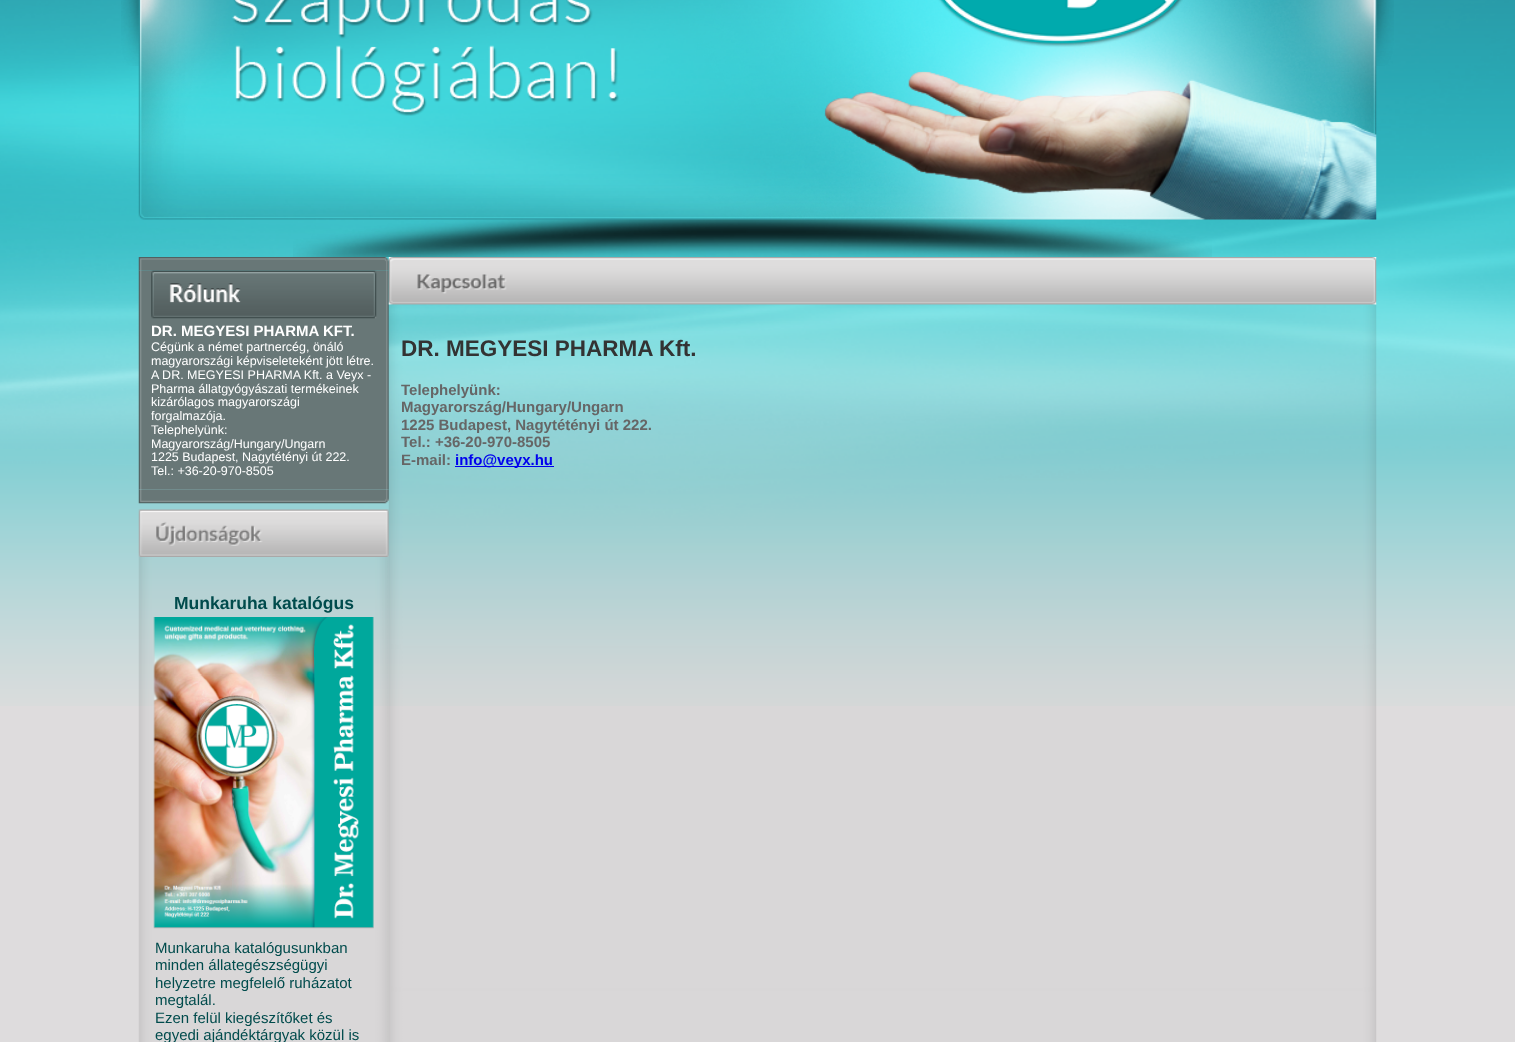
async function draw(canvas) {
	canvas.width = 1515;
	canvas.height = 1042;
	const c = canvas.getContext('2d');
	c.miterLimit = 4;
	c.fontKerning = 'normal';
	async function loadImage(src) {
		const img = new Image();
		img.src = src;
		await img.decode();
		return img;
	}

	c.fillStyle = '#dedcdd';
	c.fillRect(0, 0, 1515, 1042);
	c.drawImage(await loadImage('img1.png'), 0, 0, 1515, 706);
	c.drawImage(await loadImage('img3.png'), 138, 0, 1239, 220);
	c.drawImage(await loadImage('img2.png'), 121, 0, 18, 66);
	c.drawImage(await loadImage('img4.png'), 1376, 0, 18, 66);
	c.drawImage(await loadImage('img5.png'), 293, 219, 919, 38);
	c.drawImage(await loadImage('img6.png'), 138, 257, 251, 14);
	c.drawImage(await loadImage('img7.png'), 138, 270, 251, 220);
	c.drawImage(await loadImage('img8.png'), 151, 270, 226, 49);
	c.font = 'bold 15px Liberation Sans';
	c.fillStyle = '#fff';
	c.fillText('DR. MEGYESI PHARMA KFT.', 151, 336);
	c.font = '12.5px Liberation Sans';
	for (const [text, x, y] of [
		['Cégünk a német partnercég, önáló', 151, 351],
		['magyarországi képviseleteként jött létre.', 151, 365],
		['A DR. MEGYESI PHARMA Kft. a Veyx -', 151, 379],
		['Pharma állatgyógyászati termékeinek', 151, 393],
		['kizárólagos magyarországi', 151, 406],
		['forgalmazója.', 151, 420],
		['Telephelyünk:', 151, 434],
		['Magyarország/Hungary/Ungarn', 151, 448],
		['1225 Budapest, Nagytétényi út 222.', 151, 461],
		['Tel.: +36-20-970-8505', 151, 475],
	]) {
		c.fillText(text, x, y);
	}
	c.drawImage(await loadImage('img9.png'), 138, 489, 251, 15);
	c.drawImage(await loadImage('img10.png'), 138, 509, 251, 48);
	c.drawImage(await loadImage('img11.png'), 138, 557, 251, 485);
	c.font = 'bold 17.5px Liberation Sans';
	c.fillStyle = '#004b4c';
	c.fillText('Munkaruha katalógus', 174, 609);
	c.drawImage(await loadImage('img12.png'), 153, 617, 221, 312);
	c.font = '15px Liberation Sans';
	for (const [text, x, y] of [
		['Munkaruha katalógusunkban', 155, 953],
		['minden állategészségügyi', 155, 970],
		['helyzetre megfelelő ruházatot', 155, 988],
		['megtalál.', 155, 1005],
		['Ezen felül kiegészítőket és', 155, 1023],
		['egyedi ajándéktárgyak közül is', 155, 1040],
	]) {
		c.fillText(text, x, y);
	}
	c.drawImage(await loadImage('img13.png'), 388, 257, 989, 48);
	c.drawImage(await loadImage('img14.png'), 388, 304, 989, 738);
	c.font = 'bold 22.5px Liberation Sans';
	c.fillStyle = '#333';
	c.fillText('DR. MEGYESI PHARMA Kft.', 401, 356);
	c.font = 'bold 15px Liberation Sans';
	c.fillStyle = '#666';
	for (const [text, x, y] of [
		['Telephelyünk:', 401, 395],
		['Magyarország/Hungary/Ungarn', 401, 412],
		['1225 Budapest, Nagytétényi út 222.', 401, 430],
		['Tel.: +36-20-970-8505', 401, 447],
		['E-mail:', 401, 465],
	]) {
		c.fillText(text, x, y);
	}
	c.fillStyle = '#00e';
	c.fillRect(455, 466, 99, 1);
	c.fillText('info@veyx.hu', 455, 465);
}

draw(document.querySelector('canvas'));
